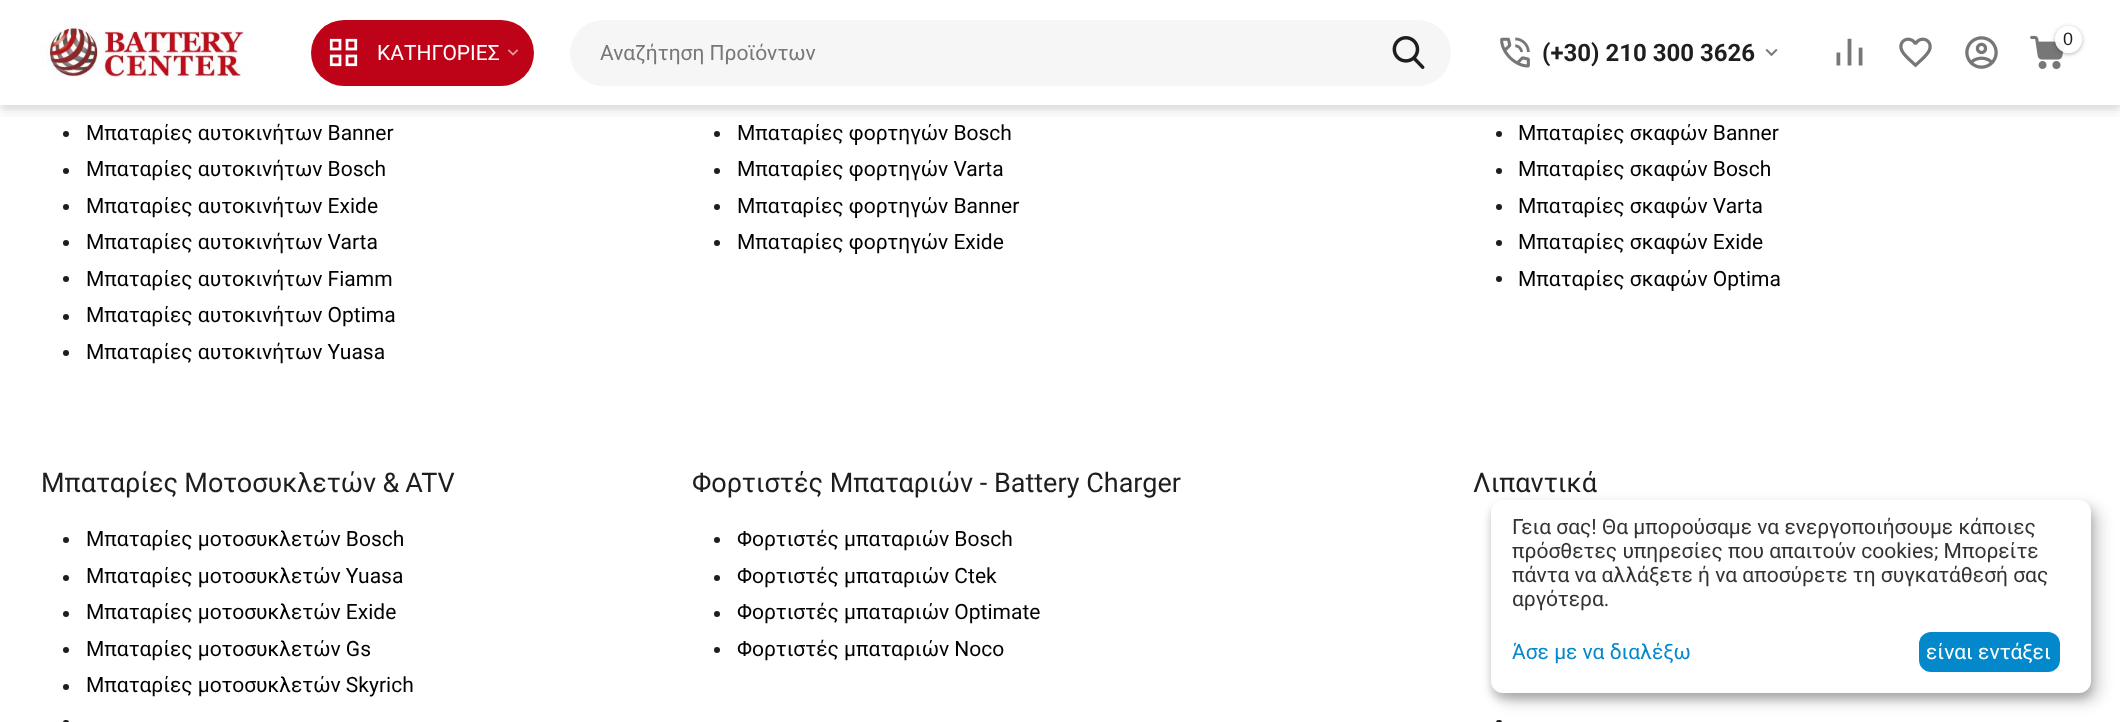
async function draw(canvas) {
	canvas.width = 2120;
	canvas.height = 722;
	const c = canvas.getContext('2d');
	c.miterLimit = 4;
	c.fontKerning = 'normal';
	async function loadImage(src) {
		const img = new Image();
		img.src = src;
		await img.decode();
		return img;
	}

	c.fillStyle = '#fff';
	c.fillRect(0, 0, 2120, 722);
	c.fillStyle = '#1e1e1e';
	c.beginPath();
	c.arc(66, 134, 3, 0, 2 * Math.PI);
	c.fill();
	c.beginPath();
	c.arc(717, 134, 3, 0, 2 * Math.PI);
	c.fill();
	c.beginPath();
	c.arc(1499, 134, 3, 0, 2 * Math.PI);
	c.fill();
	c.save();
	c.beginPath();
	c.rect(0, 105, 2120, 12);
	c.clip();
	c.fillStyle = '#0000000d';
	c.filter = 'blur(5px)';
	c.beginPath();
	c.rect(0, 11, 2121, 105);
	c.fill();
	c.filter = 'none';
	c.restore();
	c.save();
	c.beginPath();
	c.rect(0, 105, 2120, 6);
	c.clip();
	c.fillStyle = '#0000001a';
	c.filter = 'blur(4px)';
	c.beginPath();
	c.rect(0, 3, 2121, 105);
	c.fill();
	c.filter = 'none';
	c.restore();
	c.drawImage(await loadImage('img1.png'), 1836, 38, 27, 28);
	c.drawImage(await loadImage('img2.png'), 1899, 37, 33, 31);
	c.drawImage(await loadImage('img3.png'), 1965, 36, 33, 33);
	c.drawImage(await loadImage('img4.png'), 2030, 35, 35, 35);
	c.save();
	c.beginPath();
	c.moveTo(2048, 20);
	c.lineTo(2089, 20);
	c.lineTo(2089, 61);
	c.lineTo(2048, 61);
	c.closePath();
	c.moveTo(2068.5, 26);
	c.bezierCurveTo(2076, 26, 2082, 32, 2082, 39.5);
	c.bezierCurveTo(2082, 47, 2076, 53, 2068.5, 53);
	c.bezierCurveTo(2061, 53, 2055, 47, 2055, 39.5);
	c.bezierCurveTo(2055, 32, 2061, 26, 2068.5, 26);
	c.closePath();
	c.clip('evenodd');
	c.fillStyle = '#1e1e1e59';
	c.filter = 'blur(2px)';
	c.beginPath();
	c.roundRect(2055, 27, 27, 27, 13.5);
	c.fill();
	c.filter = 'none';
	c.restore();
	c.fillStyle = '#fffffff2';
	c.beginPath();
	c.arc(2068.5, 39.5, 13.5, 0, 2 * Math.PI);
	c.fill();
	c.font = '18px Liberation Sans';
	c.fillStyle = '#1e1e1e';
	c.fillText('0', 2063, 45);
	c.drawImage(await loadImage('img5.png'), 40, 21, 209, 57);
	c.fillStyle = '#be0318';
	c.beginPath();
	c.roundRect(311, 20, 223, 66, 33);
	c.fill();
	c.drawImage(await loadImage('img6.png'), 329, 38, 29, 29);
	c.font = '21px Roboto';
	c.fillStyle = '#fff';
	c.fillText('ΚΑΤΗΓΟΡΙΕΣ', 377, 60);
	c.drawImage(await loadImage('img7.png'), 507, 49, 12, 7);
	c.fillStyle = '#f6f6f6';
	c.beginPath();
	c.roundRect(570, 20, 881, 66, 33);
	c.fill();
	c.fillStyle = '#777';
	c.fillText('Αναζήτηση Προϊόντων', 600, 60);
	c.drawImage(await loadImage('img8.png'), 1392, 36, 33, 33);
	c.drawImage(await loadImage('img9.png'), 1500, 37, 30, 31);
	c.font = 'bold 24px Roboto';
	c.fillStyle = '#1e1e1e';
	c.fillText('(+30) 210 300 3626', 1542, 61);
	c.drawImage(await loadImage('img10.png'), 1765, 48, 13, 9);
	c.font = '21px Roboto';
	c.fillStyle = '#000';
	c.fillText('Μπαταρίες αυτοκινήτων Banner', 86, 140);
	c.fillStyle = '#1e1e1e';
	c.beginPath();
	c.arc(66, 171, 3, 0, 2 * Math.PI);
	c.fill();
	c.fillStyle = '#000';
	c.fillText('Μπαταρίες αυτοκινήτων Bosch', 86, 176);
	c.fillStyle = '#1e1e1e';
	c.beginPath();
	c.arc(66, 207, 3, 0, 2 * Math.PI);
	c.fill();
	c.fillStyle = '#000';
	c.fillText('Μπαταρίες αυτοκινήτων Exide', 86, 213);
	c.fillStyle = '#1e1e1e';
	c.beginPath();
	c.arc(66, 243, 3, 0, 2 * Math.PI);
	c.fill();
	c.fillStyle = '#000';
	c.fillText('Μπαταρίες αυτοκινήτων Varta', 86, 249);
	c.fillStyle = '#1e1e1e';
	c.beginPath();
	c.arc(66, 279, 3, 0, 2 * Math.PI);
	c.fill();
	c.fillStyle = '#000';
	c.fillText('Μπαταρίες αυτοκινήτων Fiamm', 86, 286);
	c.fillStyle = '#1e1e1e';
	c.beginPath();
	c.arc(66, 317, 3, 0, 2 * Math.PI);
	c.fill();
	c.fillStyle = '#000';
	c.fillText('Μπαταρίες αυτοκινήτων Optima', 86, 322);
	c.fillStyle = '#1e1e1e';
	c.beginPath();
	c.arc(66, 353, 3, 0, 2 * Math.PI);
	c.fill();
	c.fillStyle = '#000';
	c.fillText('Μπαταρίες αυτοκινήτων Yuasa', 86, 359);
	c.fillText('Μπαταρίες φορτηγών Bosch', 737, 140);
	c.fillStyle = '#1e1e1e';
	c.beginPath();
	c.arc(717, 171, 3, 0, 2 * Math.PI);
	c.fill();
	c.fillStyle = '#000';
	c.fillText('Μπαταρίες φορτηγών Varta', 737, 176);
	c.fillStyle = '#1e1e1e';
	c.beginPath();
	c.arc(717, 207, 3, 0, 2 * Math.PI);
	c.fill();
	c.fillStyle = '#000';
	c.fillText('Μπαταρίες φορτηγών Banner', 737, 213);
	c.fillStyle = '#1e1e1e';
	c.beginPath();
	c.arc(717, 243, 3, 0, 2 * Math.PI);
	c.fill();
	c.fillStyle = '#000';
	c.fillText('Μπαταρίες φορτηγών Exide', 737, 249);
	c.fillText('Μπαταρίες σκαφών Banner', 1518, 140);
	c.fillStyle = '#1e1e1e';
	c.beginPath();
	c.arc(1499, 171, 3, 0, 2 * Math.PI);
	c.fill();
	c.fillStyle = '#000';
	c.fillText('Μπαταρίες σκαφών Bosch', 1518, 176);
	c.fillStyle = '#1e1e1e';
	c.beginPath();
	c.arc(1499, 207, 3, 0, 2 * Math.PI);
	c.fill();
	c.fillStyle = '#000';
	c.fillText('Μπαταρίες σκαφών Varta', 1518, 213);
	c.fillStyle = '#1e1e1e';
	c.beginPath();
	c.arc(1499, 243, 3, 0, 2 * Math.PI);
	c.fill();
	c.fillStyle = '#000';
	c.fillText('Μπαταρίες σκαφών Exide', 1518, 249);
	c.fillStyle = '#1e1e1e';
	c.beginPath();
	c.arc(1499, 279, 3, 0, 2 * Math.PI);
	c.fill();
	c.fillStyle = '#000';
	c.fillText('Μπαταρίες σκαφών Optima', 1518, 286);
	c.wordSpacing = '-0.5px';
	c.font = '27px Roboto';
	c.fillStyle = '#1e1e1e';
	c.fillText('Μπαταρίες Μοτοσυκλετών & ATV', 41, 492);
	c.beginPath();
	c.arc(66, 540, 3, 0, 2 * Math.PI);
	c.fill();
	c.wordSpacing = '0px';
	c.font = '21px Roboto';
	c.fillStyle = '#000';
	c.fillText('Μπαταρίες μοτοσυκλετών Bosch', 86, 546);
	c.fillStyle = '#1e1e1e';
	c.beginPath();
	c.arc(66, 578, 3, 0, 2 * Math.PI);
	c.fill();
	c.fillStyle = '#000';
	c.fillText('Μπαταρίες μοτοσυκλετών Yuasa', 86, 583);
	c.fillStyle = '#1e1e1e';
	c.beginPath();
	c.arc(66, 614, 3, 0, 2 * Math.PI);
	c.fill();
	c.fillStyle = '#000';
	c.fillText('Μπαταρίες μοτοσυκλετών Exide', 86, 619);
	c.fillStyle = '#1e1e1e';
	c.beginPath();
	c.arc(66, 650, 3, 0, 2 * Math.PI);
	c.fill();
	c.fillStyle = '#000';
	c.fillText('Μπαταρίες μοτοσυκλετών Gs', 86, 656);
	c.fillStyle = '#1e1e1e';
	c.beginPath();
	c.arc(66, 687, 3, 0, 2 * Math.PI);
	c.fill();
	c.fillStyle = '#000';
	c.fillText('Μπαταρίες μοτοσυκλετών Skyrich', 86, 692);
	c.fillStyle = '#1e1e1e';
	c.beginPath();
	c.roundRect(63, 720, 6, 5, 3);
	c.fill();
	c.font = '27px Roboto';
	c.fillText('Φορτιστές Μπαταριών - Battery Charger', 692, 492);
	c.beginPath();
	c.arc(717, 540, 3, 0, 2 * Math.PI);
	c.fill();
	c.font = '21px Roboto';
	c.fillStyle = '#000';
	c.fillText('Φορτιστές μπαταριών Bosch', 737, 546);
	c.fillStyle = '#1e1e1e';
	c.beginPath();
	c.arc(717, 578, 3, 0, 2 * Math.PI);
	c.fill();
	c.fillStyle = '#000';
	c.fillText('Φορτιστές μπαταριών Ctek', 737, 583);
	c.fillStyle = '#1e1e1e';
	c.beginPath();
	c.arc(717, 614, 3, 0, 2 * Math.PI);
	c.fill();
	c.fillStyle = '#000';
	c.fillText('Φορτιστές μπαταριών Optimate', 737, 619);
	c.fillStyle = '#1e1e1e';
	c.beginPath();
	c.arc(717, 650, 3, 0, 2 * Math.PI);
	c.fill();
	c.fillStyle = '#000';
	c.fillText('Φορτιστές μπαταριών Noco', 737, 656);
	c.font = '27px Roboto';
	c.fillStyle = '#1e1e1e';
	c.fillText('Λιπαντικά', 1473, 492);
	c.beginPath();
	c.roundRect(1496, 720, 6, 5, 3);
	c.fill();
	c.fillStyle = '#00000030';
	c.filter = 'blur(7.5px)';
	c.beginPath();
	c.roundRect(1499, 507, 600, 194, 12);
	c.fill();
	c.filter = 'none';
	c.fillStyle = '#00000033';
	c.filter = 'blur(4.5px)';
	c.beginPath();
	c.roundRect(1491, 506, 600, 193, 12);
	c.fill();
	c.filter = 'none';
	c.fillStyle = '#fff';
	c.beginPath();
	c.roundRect(1491, 500, 600, 193, 12);
	c.fill();
	c.font = '21px Roboto';
	c.fillStyle = '#333';
	for (const [text, x, y] of [
		['Γεια σας! Θα μπορούσαμε να ενεργοποιήσουμε κάποιες', 1512, 534],
		['πρόσθετες υπηρεσίες που απαιτούν cookies; Μπορείτε', 1512, 558],
		['πάντα να αλλάξετε ή να αποσύρετε τη συγκατάθεσή σας', 1512, 582],
		['αργότερα.', 1512, 606],
	]) {
		c.fillText(text, x, y);
	}
	c.fillStyle = '#0388cc';
	c.fillText('Άσε με να διαλέξω', 1512, 659);
	c.beginPath();
	c.roundRect(1919, 632, 141, 40, 12);
	c.fill();
	c.fillStyle = '#fff';
	c.fillText('είναι εντάξει', 1926, 659);
}

draw(document.querySelector('canvas'));
